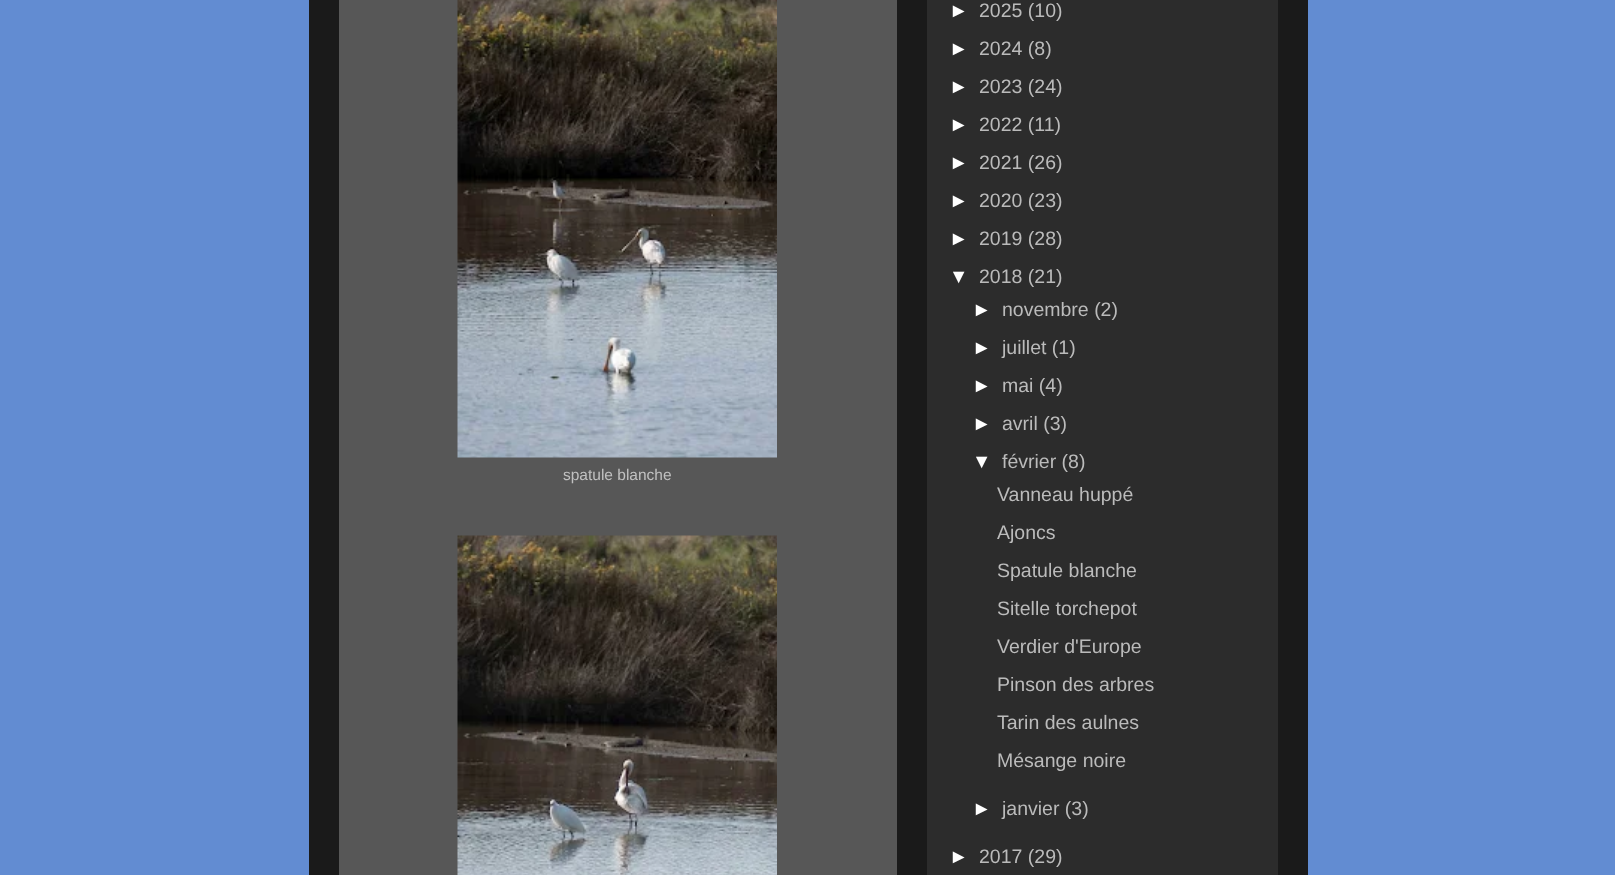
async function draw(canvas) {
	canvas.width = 1615;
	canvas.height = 875;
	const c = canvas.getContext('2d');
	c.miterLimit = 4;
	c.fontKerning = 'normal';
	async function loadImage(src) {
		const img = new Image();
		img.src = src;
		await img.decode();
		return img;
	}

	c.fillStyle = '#628cd2';
	c.fillRect(0, 0, 1615, 875);
	for (const [x, y, w, h, color] of [
		[309, 0, 999, 875, '#1a1a1a'],
		[927, 0, 351, 875, '#2c2c2c'],
		[339, 0, 558, 875, '#575757'],
	]) {
		c.fillStyle = color;
		c.fillRect(x, y, w, h);
	}
	c.drawImage(await loadImage('img1.png'), 457, 0, 320, 458);
	c.font = '15.5px Liberation Sans';
	c.fillStyle = '#c1c1c1';
	c.fillText('spatule blanche', 563, 480);
	c.drawImage(await loadImage('img2.png'), 457, 535, 320, 340);
	c.font = '19.5px Liberation Sans';
	c.fillStyle = '#fff';
	c.fillText('►', 949, 17);
	c.fillStyle = '#bbb';
	c.fillText('2025 (10)', 979, 17);
	c.fillStyle = '#fff';
	c.fillText('►', 949, 55);
	c.fillStyle = '#bbb';
	c.fillText('2024 (8)', 979, 55);
	c.fillStyle = '#fff';
	c.fillText('►', 949, 93);
	c.fillStyle = '#bbb';
	c.fillText('2023 (24)', 979, 93);
	c.fillStyle = '#fff';
	c.fillText('►', 949, 131);
	c.fillStyle = '#bbb';
	c.fillText('2022 (11)', 979, 131);
	c.fillStyle = '#fff';
	c.fillText('►', 949, 169);
	c.fillStyle = '#bbb';
	c.fillText('2021 (26)', 979, 169);
	c.fillStyle = '#fff';
	c.fillText('►', 949, 207);
	c.fillStyle = '#bbb';
	c.fillText('2020 (23)', 979, 207);
	c.fillStyle = '#fff';
	c.fillText('►', 949, 245);
	c.fillStyle = '#bbb';
	c.fillText('2019 (28)', 979, 245);
	c.fillStyle = '#fff';
	c.fillText('▼', 949, 283);
	c.fillStyle = '#bbb';
	c.fillText('2018 (21)', 979, 283);
	c.fillStyle = '#fff';
	c.fillText('►', 972, 316);
	c.fillStyle = '#bbb';
	c.fillText('novembre (2)', 1002, 316);
	c.fillStyle = '#fff';
	c.fillText('►', 972, 354);
	c.fillStyle = '#bbb';
	c.fillText('juillet (1)', 1002, 354);
	c.fillStyle = '#fff';
	c.fillText('►', 972, 392);
	c.fillStyle = '#bbb';
	c.fillText('mai (4)', 1002, 392);
	c.fillStyle = '#fff';
	c.fillText('►', 972, 430);
	c.fillStyle = '#bbb';
	c.fillText('avril (3)', 1002, 430);
	c.fillStyle = '#fff';
	c.fillText('▼', 972, 468);
	c.fillStyle = '#bbb';
	for (const [text, x, y] of [
		['février (8)', 1002, 468],
		['Vanneau huppé', 997, 501],
		['Ajoncs', 997, 539],
		['Spatule blanche', 997, 577],
		['Sitelle torchepot', 997, 615],
		['Verdier d\'Europe', 997, 653],
		['Pinson des arbres', 997, 691],
		['Tarin des aulnes', 997, 729],
		['Mésange noire', 997, 767],
	]) {
		c.fillText(text, x, y);
	}
	c.fillStyle = '#fff';
	c.fillText('►', 972, 815);
	c.fillStyle = '#bbb';
	c.fillText('janvier (3)', 1002, 815);
	c.fillStyle = '#fff';
	c.fillText('►', 949, 863);
	c.fillStyle = '#bbb';
	c.fillText('2017 (29)', 979, 863);
}

draw(document.querySelector('canvas'));
